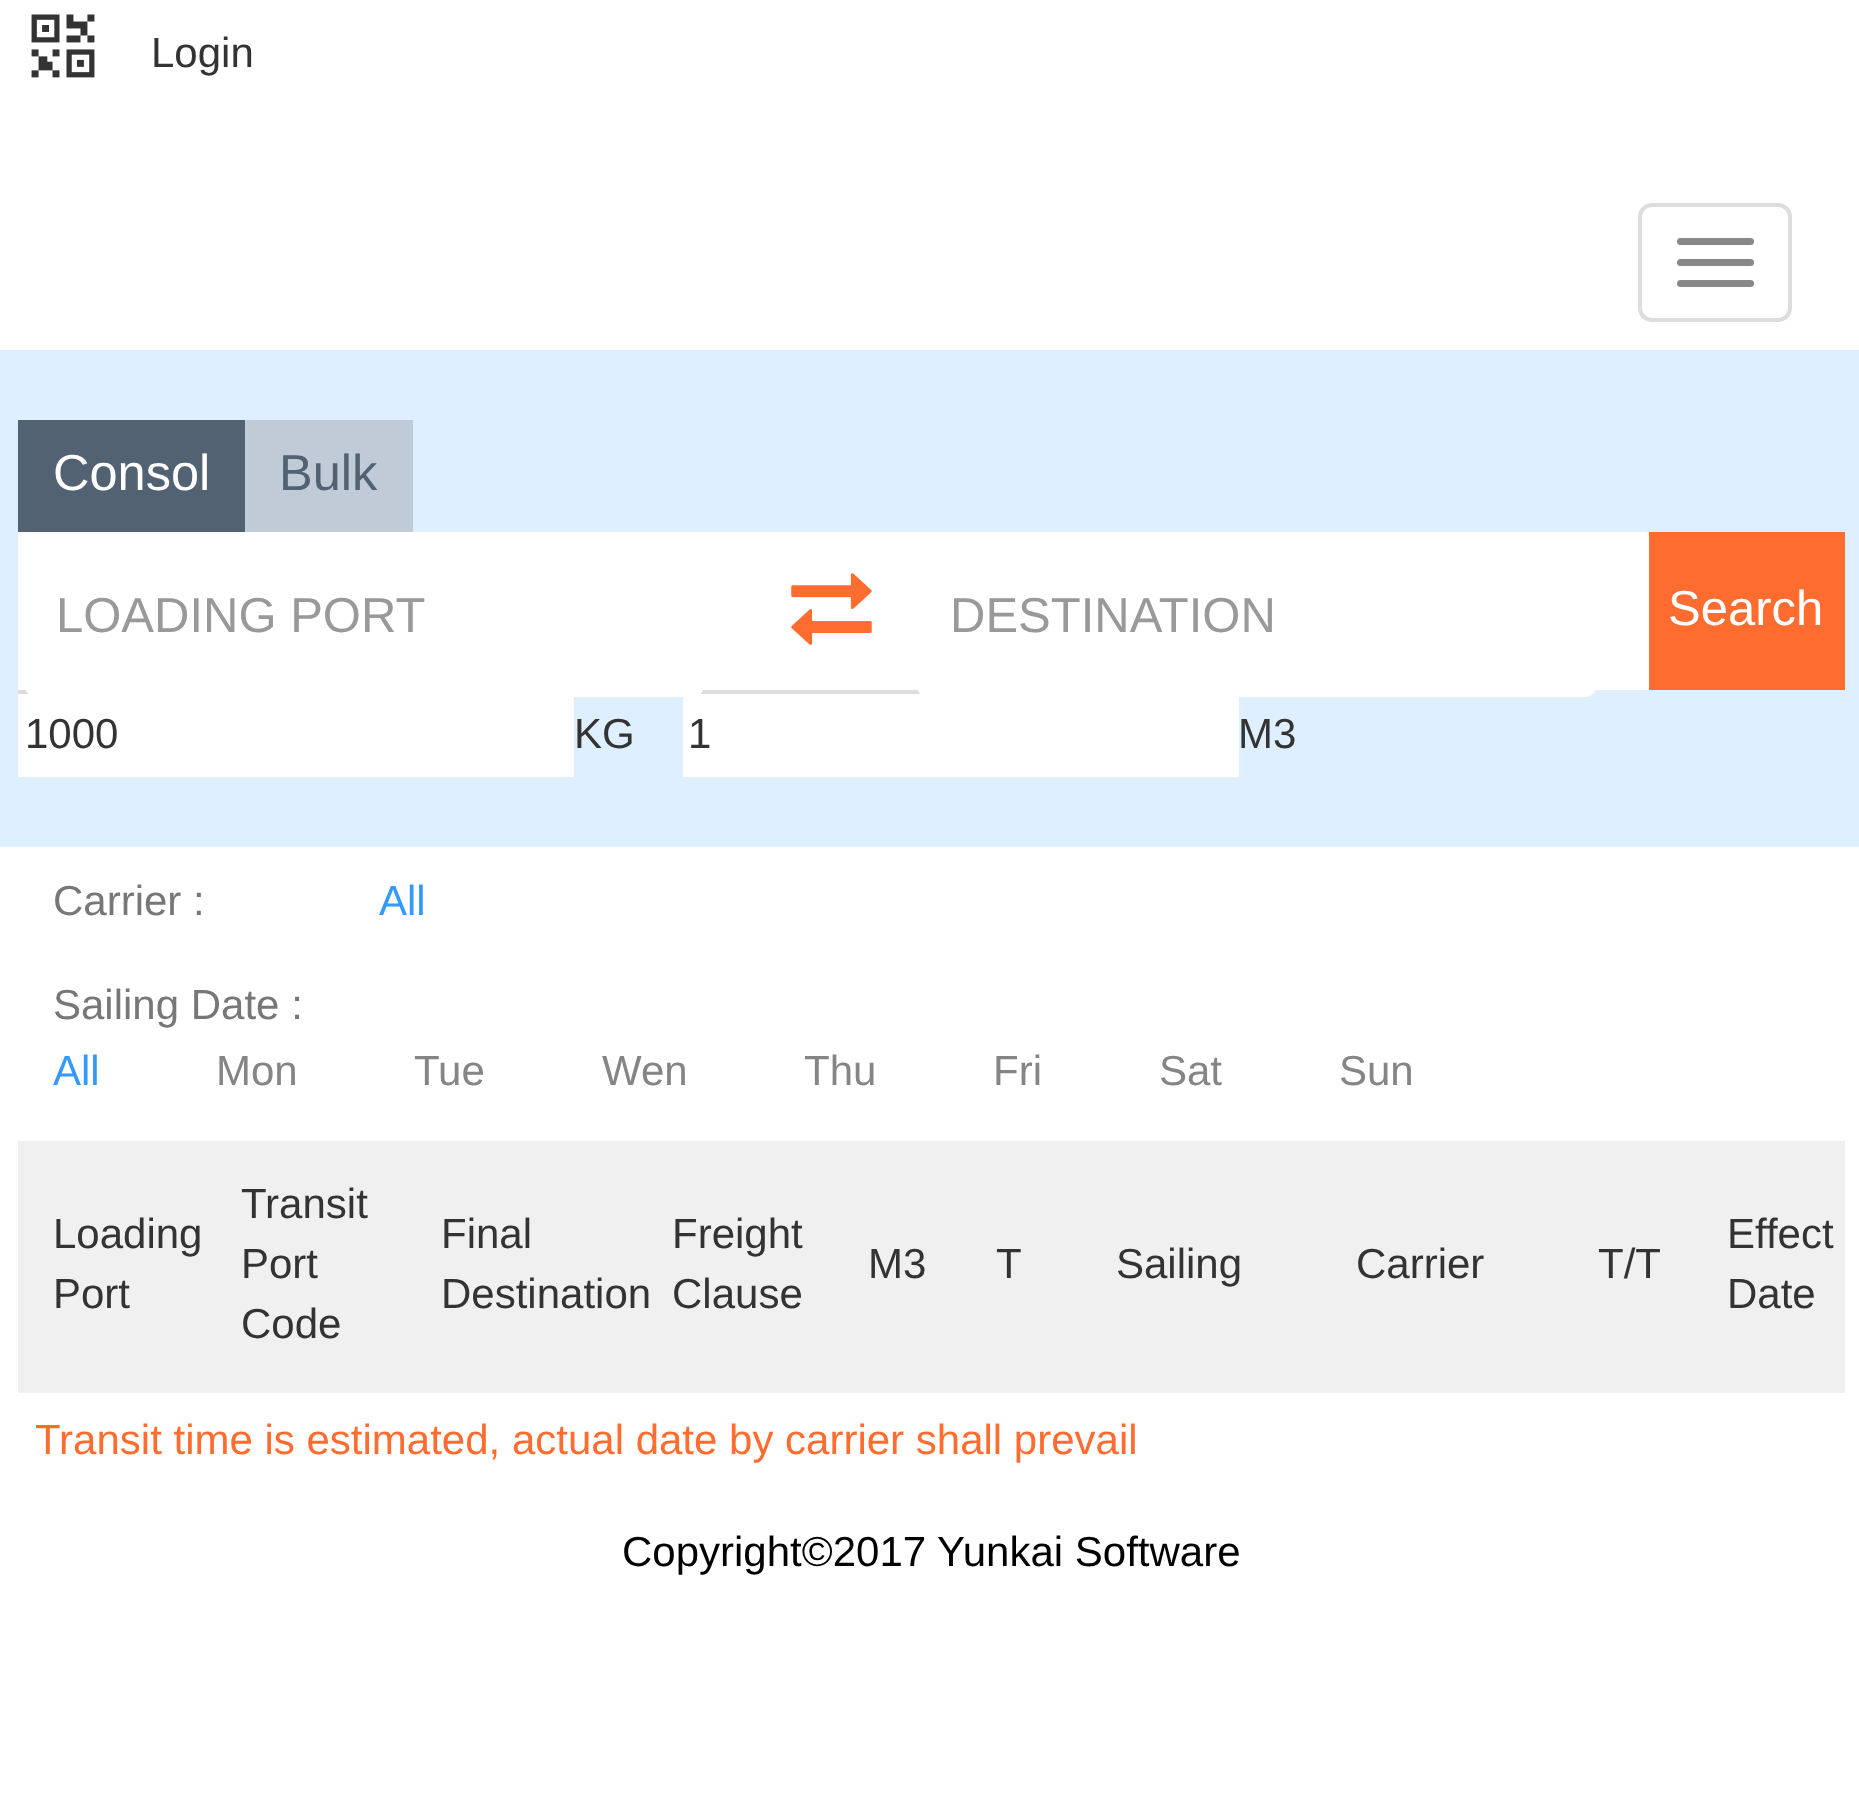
async function draw(canvas) {
	canvas.width = 1859;
	canvas.height = 1808;
	const c = canvas.getContext('2d');
	c.miterLimit = 4;
	c.fontKerning = 'normal';
	async function loadImage(src) {
		const img = new Image();
		img.src = src;
		await img.decode();
		return img;
	}

	c.fillStyle = '#fff';
	c.fillRect(0, 0, 1859, 1808);
	c.drawImage(await loadImage('img1.png'), 31, 14, 64, 64);
	c.font = '42px Liberation Sans';
	c.fillStyle = '#333';
	c.fillText('Login', 151, 67);
	c.beginPath();
	c.roundRect(1640, 205, 150, 115, 12);
	c.strokeStyle = '#ddd';
	c.lineWidth = 4;
	c.stroke();
	c.fillStyle = '#888';
	c.beginPath();
	c.roundRect(1677, 238, 77, 7, 3.5);
	c.fill();
	c.beginPath();
	c.roundRect(1677, 259, 77, 7, 3.5);
	c.fill();
	c.beginPath();
	c.roundRect(1677, 280, 77, 7, 3.5);
	c.fill();
	c.fillStyle = '#deefff';
	c.fillRect(0, 350, 1859, 497);
	c.fillStyle = '#526272';
	c.fillRect(18, 420, 227, 112);
	c.font = '50.5px Liberation Sans';
	c.fillStyle = '#fff';
	c.fillText('Consol', 53, 490);
	c.fillStyle = '#c1cbd7';
	c.fillRect(245, 420, 168, 112);
	c.fillStyle = '#526272';
	c.fillText('Bulk', 279, 490);
	for (const [x, y, w, h, color] of [
		[18, 532, 1631, 158, '#fff'],
		[18, 694, 556, 83, '#fff'],
		[18, 690, 11, 4, '#ddd'],
		[683, 694, 556, 83, '#fff'],
		[700, 690, 221, 4, '#ddd'],
	]) {
		c.fillStyle = color;
		c.fillRect(x, y, w, h);
	}
	c.fillStyle = '#fff';
	c.beginPath();
	c.roundRect(27, 541, 675, 154, 9);
	c.fill();
	c.strokeStyle = '#fff';
	c.stroke();
	c.font = '49px Liberation Sans';
	c.fillStyle = '#999';
	c.fillText('LOADING PORT', 56, 632);
	c.drawImage(await loadImage('img2.png'), 791, 573, 81, 72);
	c.fillStyle = '#fff';
	c.beginPath();
	c.roundRect(919, 541, 675, 154, 9);
	c.fill();
	c.stroke();
	c.fillStyle = '#999';
	c.fillText('DESTINATION', 950, 632);
	c.fillStyle = '#ff6c2f';
	c.fillRect(1649, 532, 196, 158);
	c.fillStyle = '#fff';
	c.fillText('Search', 1668, 625);
	c.font = '42px Liberation Sans';
	c.fillStyle = '#333';
	for (const [text, x, y] of [
		['1000', 25, 748],
		['KG', 574, 748],
		['1', 688, 748],
		['M3', 1238, 748],
	]) {
		c.fillText(text, x, y);
	}
	c.fillStyle = '#777';
	c.fillText('Carrier :', 53, 915);
	c.fillStyle = '#39f';
	c.fillText('All', 379, 915);
	c.fillStyle = '#777';
	c.fillText('Sailing Date :', 53, 1019);
	c.fillStyle = '#39f';
	c.fillText('All', 53, 1085);
	c.fillStyle = '#858585';
	for (const [text, x, y] of [
		['Mon', 216, 1085],
		['Tue', 414, 1085],
		['Wen', 602, 1085],
		['Thu', 804, 1085],
		['Fri', 993, 1085],
		['Sat', 1159, 1085],
		['Sun', 1339, 1085],
	]) {
		c.fillText(text, x, y);
	}
	c.fillStyle = '#f0f0f0';
	c.fillRect(18, 1141, 1827, 252);
	c.fillStyle = '#333';
	for (const [text, x, y] of [
		['Loading', 53, 1248],
		['Port', 53, 1308],
		['Transit', 241, 1218],
		['Port', 241, 1278],
		['Code', 241, 1338],
		['Final', 441, 1248],
		['Destination', 441, 1308],
		['Freight', 672, 1248],
		['Clause', 672, 1308],
		['M3', 868, 1278],
		['T', 996, 1278],
		['Sailing', 1116, 1278],
		['Carrier', 1356, 1278],
		['T/T', 1598, 1278],
		['Effect', 1727, 1248],
		['Date', 1727, 1308],
	]) {
		c.fillText(text, x, y);
	}
	c.fillStyle = '#ff6c2f';
	c.fillText('Transit time is estimated, actual date by carrier shall prevail', 35, 1454);
	c.fillStyle = '#000';
	c.fillText('Copyright©2017 Yunkai Software', 622, 1566);
}

draw(document.querySelector('canvas'));
